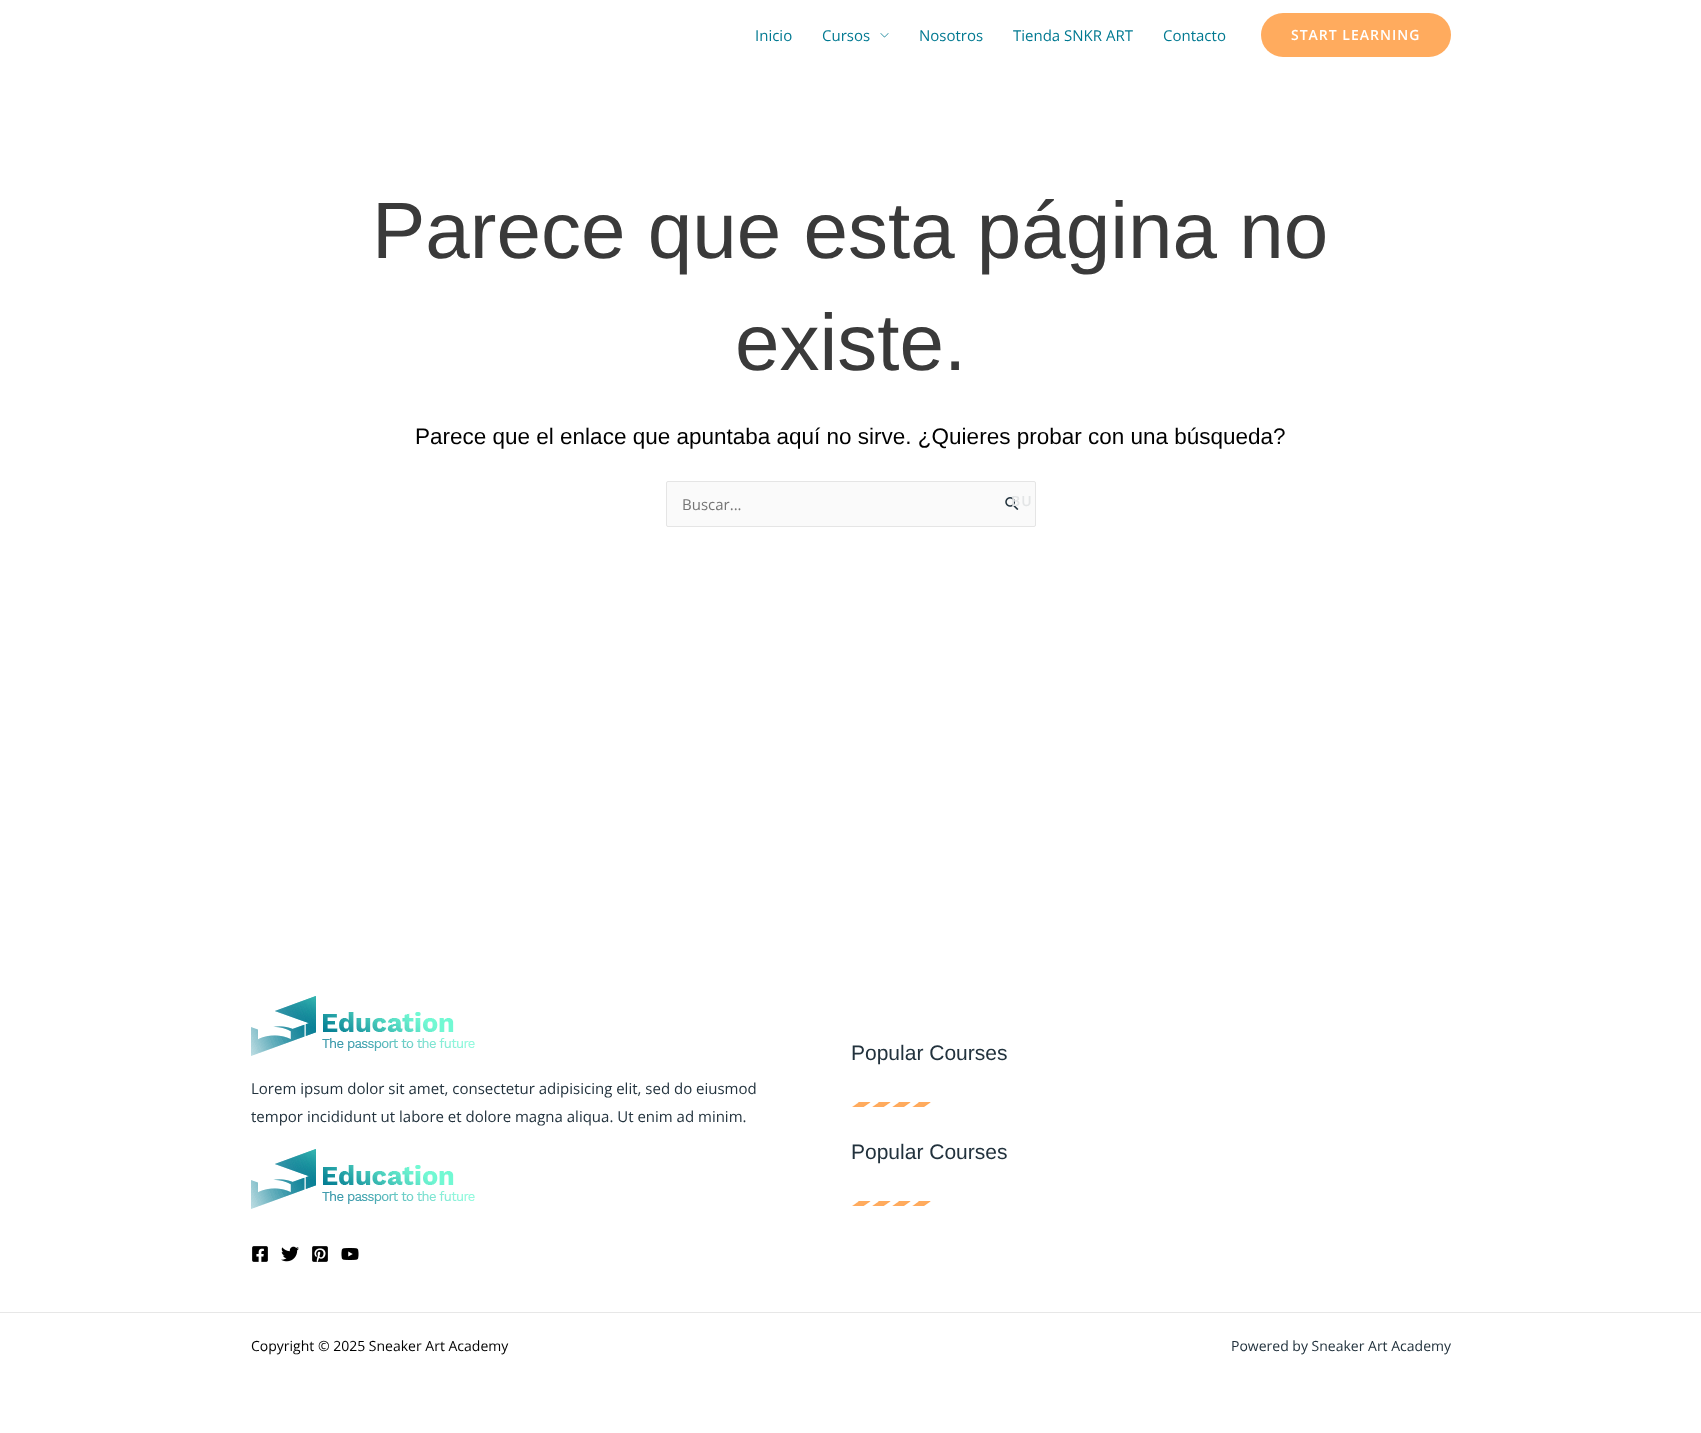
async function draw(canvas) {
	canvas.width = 1701;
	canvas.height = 1433;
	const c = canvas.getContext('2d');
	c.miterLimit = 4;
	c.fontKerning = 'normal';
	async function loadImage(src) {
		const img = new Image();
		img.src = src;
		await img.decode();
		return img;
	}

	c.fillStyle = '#fff';
	c.fillRect(0, 0, 1701, 1433);
	c.font = '15px Open Sans';
	c.fillStyle = '#007991';
	c.fillText('Inicio', 755, 41);
	c.fillText('Cursos', 822, 41);
	c.drawImage(await loadImage('img1.png'), 880, 33, 9, 5);
	for (const [text, x, y] of [
		['Nosotros', 919, 41],
		['Tienda SNKR ART', 1013, 41],
		['Contacto', 1163, 41],
	]) {
		c.fillText(text, x, y);
	}
	c.fillStyle = '#ffab5e';
	c.beginPath();
	c.roundRect(1261, 13, 190, 44, 22);
	c.fill();
	c.letterSpacing = '1px';
	c.font = '600 14px Open Sans';
	c.fillStyle = '#fff';
	c.fillText('START LEARNING', 1291, 40);
	c.letterSpacing = '0px';
	c.font = '80px Liberation Sans';
	c.fillStyle = '#3a3a3a';
	c.fillText('Parece que esta página no', 372, 258);
	c.fillText('existe.', 735, 370);
	c.font = '22.5px Liberation Sans';
	c.fillStyle = '#000';
	c.fillText('Parece que el enlace que apuntaba aquí no sirve. ¿Quieres probar con una búsqueda?', 415, 444);
	c.fillStyle = '#fafafa';
	c.beginPath();
	c.roundRect(666.5, 481.5, 369, 45, 1.5);
	c.fill();
	c.strokeStyle = '#e5e5e5';
	c.stroke();
	c.drawImage(await loadImage('img2.png'), 1005, 497, 14, 13);
	c.letterSpacing = '1px';
	c.font = '600 14px Open Sans';
	c.fillStyle = '#e3e5e6';
	c.fillText('BU', 1011, 506);
	c.letterSpacing = '0px';
	c.font = '15px Open Sans';
	c.fillStyle = '#757575';
	c.fillText('Buscar...', 682, 510);
	c.drawImage(await loadImage('img3.png'), 251, 996, 224, 60);
	c.fillStyle = '#22323d';
	c.fillText('Lorem ipsum dolor sit amet, consectetur adipisicing elit, sed do eiusmod', 251, 1094);
	c.fillText('tempor incididunt ut labore et dolore magna aliqua. Ut enim ad minim.', 251, 1122);
	c.drawImage(await loadImage('img3.png'), 251, 1149, 224, 60);
	c.drawImage(await loadImage('img4.png'), 252, 1246, 16, 16);
	c.drawImage(await loadImage('img5.png'), 281, 1246, 18, 16);
	c.drawImage(await loadImage('img6.png'), 312, 1246, 16, 16);
	c.drawImage(await loadImage('img7.png'), 341, 1248, 18, 12);
	c.font = '21px Liberation Sans';
	c.fillText('Popular Courses', 851, 1060);
	c.drawImage(await loadImage('img8.png'), 852, 1102, 79, 5);
	c.fillText('Popular Courses', 851, 1159);
	c.drawImage(await loadImage('img8.png'), 852, 1201, 79, 5);
	c.fillStyle = '#e7e7e7';
	c.fillRect(0, 1312, 1701, 1);
	c.font = '14px Open Sans';
	c.fillStyle = '#000';
	c.fillText('Copyright © 2025 Sneaker Art Academy', 251, 1351);
	c.fillStyle = '#22323d';
	c.fillText('Powered by Sneaker Art Academy', 1231, 1351);
}

draw(document.querySelector('canvas'));
